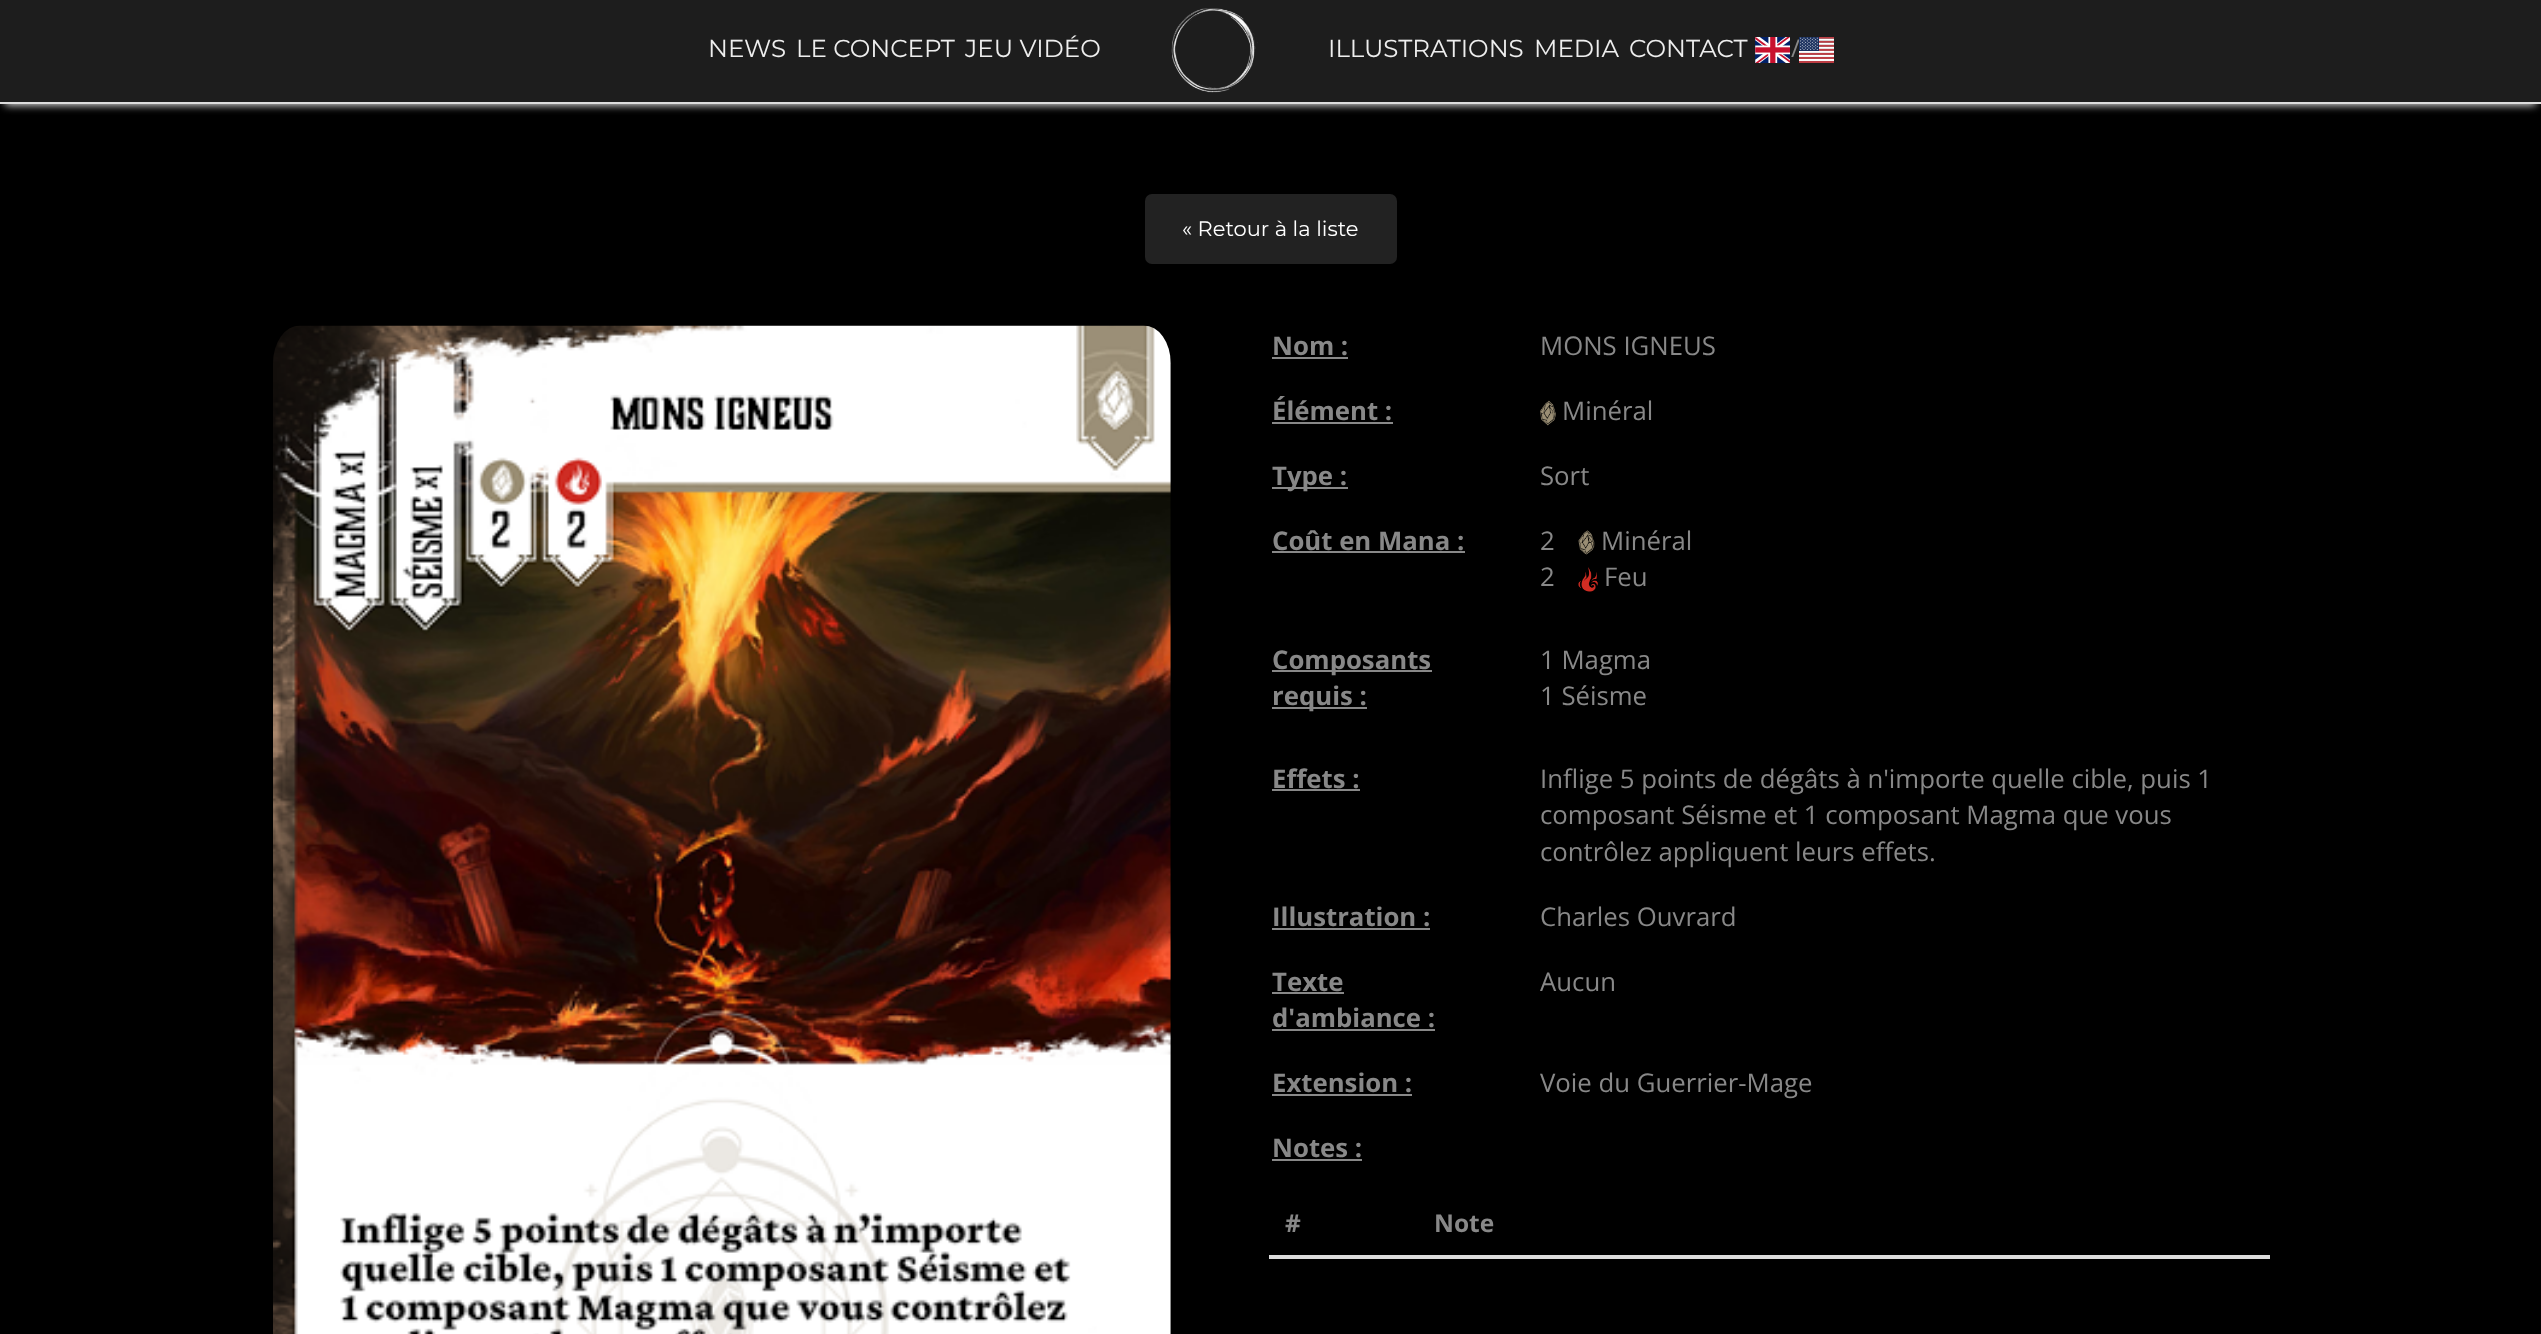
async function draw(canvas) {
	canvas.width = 2541;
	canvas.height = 1334;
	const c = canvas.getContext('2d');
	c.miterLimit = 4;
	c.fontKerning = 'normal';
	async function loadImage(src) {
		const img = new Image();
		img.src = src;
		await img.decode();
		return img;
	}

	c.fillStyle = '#000';
	c.fillRect(0, 0, 2541, 1334);
	c.fillStyle = '#ececec';
	c.filter = 'blur(4.5px)';
	c.beginPath();
	c.rect(5, 12, 2531, 93);
	c.fill();
	c.filter = 'none';
	c.fillStyle = '#1d1d1d';
	c.fillRect(0, 0, 2541, 102);
	c.fillStyle = '#ddd';
	c.fillRect(0, 102, 2541, 2);
	c.font = '24.5px Montserrat';
	c.fillStyle = '#eee';
	for (const [text, x, y] of [
		['NEWS', 708, 57],
		['LE CONCEPT', 796, 57],
		['JEU VIDÉO', 965, 57],
	]) {
		c.fillText(text, x, y);
	}
	c.drawImage(await loadImage('img1.png'), 1171, 8, 87, 85);
	for (const [text, x, y] of [
		['ILLUSTRATIONS', 1328, 57],
		['MEDIA', 1534, 57],
		['CONTACT', 1629, 57],
	]) {
		c.fillText(text, x, y);
	}
	c.drawImage(await loadImage('img2.png'), 1755, 37, 35, 26);
	c.font = '24.5px Open Sans';
	c.fillStyle = '#888';
	c.fillText('/', 1791, 57);
	c.drawImage(await loadImage('img3.png'), 1799, 37, 35, 26);
	c.fillStyle = '#222';
	c.beginPath();
	c.roundRect(1145, 194, 252, 70, 7);
	c.fill();
	c.font = '21px Montserrat';
	c.fillStyle = '#fff';
	c.fillText('« Retour à la liste', 1182, 236);
	c.drawImage(await loadImage('img4.png'), 273, 325, 898, 1009);
	c.font = 'bold 25.75px Open Sans';
	c.fillStyle = '#888';
	c.fillText('Nom :', 1272, 355);
	c.fillRect(1272, 357, 76, 2);
	c.font = '25.75px Open Sans';
	c.fillText('MONS IGNEUS', 1540, 355);
	c.font = 'bold 25.75px Open Sans';
	c.fillText('Élément :', 1272, 420);
	c.fillRect(1272, 422, 121, 2);
	c.drawImage(await loadImage('img5.png'), 1540, 400, 16, 26);
	c.font = '25.75px Open Sans';
	c.fillText('Minéral', 1562, 420);
	c.fillRect(1272, 487, 76, 2);
	c.font = 'bold 25.75px Open Sans';
	c.fillText('Type :', 1272, 485);
	c.font = '25.75px Open Sans';
	c.fillText('Sort', 1540, 485);
	c.font = 'bold 25.75px Open Sans';
	c.fillText('Coût en Mana :', 1272, 550);
	c.fillRect(1272, 551, 193, 2);
	c.font = '25.75px Open Sans';
	c.fillText('2', 1540, 550);
	c.drawImage(await loadImage('img6.png'), 1578, 530, 17, 25);
	c.fillText('Minéral', 1601, 550);
	c.fillText('2', 1540, 586);
	c.drawImage(await loadImage('img7.png'), 1578, 567, 20, 25);
	c.fillText('Feu', 1604, 586);
	c.fillRect(1272, 670, 160, 2);
	c.font = 'bold 25.75px Open Sans';
	c.fillText('Composants', 1272, 669);
	c.fillRect(1272, 707, 95, 2);
	c.fillText('requis :', 1272, 705);
	c.font = '25.75px Open Sans';
	c.fillText('1 Magma', 1540, 669);
	c.fillText('1 Séisme', 1540, 705);
	c.font = 'bold 25.75px Open Sans';
	c.fillText('Effets :', 1272, 788);
	c.fillRect(1272, 789, 88, 2);
	c.font = '25.75px Open Sans';
	for (const [text, x, y] of [
		['Inflige 5 points de dégâts à n\'importe quelle cible, puis 1', 1540, 788],
		['composant Séisme et 1 composant Magma que vous', 1540, 824],
		['contrôlez appliquent leurs effets.', 1540, 861],
	]) {
		c.fillText(text, x, y);
	}
	c.font = 'bold 25.75px Open Sans';
	c.fillText('Illustration :', 1272, 926);
	c.fillRect(1272, 928, 158, 2);
	c.font = '25.75px Open Sans';
	c.fillText('Charles Ouvrard', 1540, 926);
	c.font = 'bold 25.75px Open Sans';
	c.fillText('Texte', 1272, 991);
	c.fillRect(1272, 992, 72, 2);
	c.fillText('d\'ambiance :', 1272, 1027);
	c.fillRect(1272, 1029, 163, 2);
	c.font = '25.75px Open Sans';
	c.fillText('Aucun', 1540, 991);
	c.font = 'bold 25.75px Open Sans';
	c.fillText('Extension :', 1272, 1092);
	c.fillRect(1272, 1094, 140, 2);
	c.font = '25.75px Open Sans';
	c.fillText('Voie du Guerrier-Mage', 1540, 1092);
	c.font = 'bold 25.75px Open Sans';
	c.fillText('Notes :', 1272, 1157);
	c.fillRect(1272, 1159, 90, 2);
	c.font = 'bold 24.5px Open Sans';
	c.fillText('#', 1285, 1232);
	c.fillStyle = '#ddd';
	c.fillRect(1269, 1255, 1001, 4);
	c.fillStyle = '#888';
	c.fillText('Note', 1434, 1232);
}

draw(document.querySelector('canvas'));
